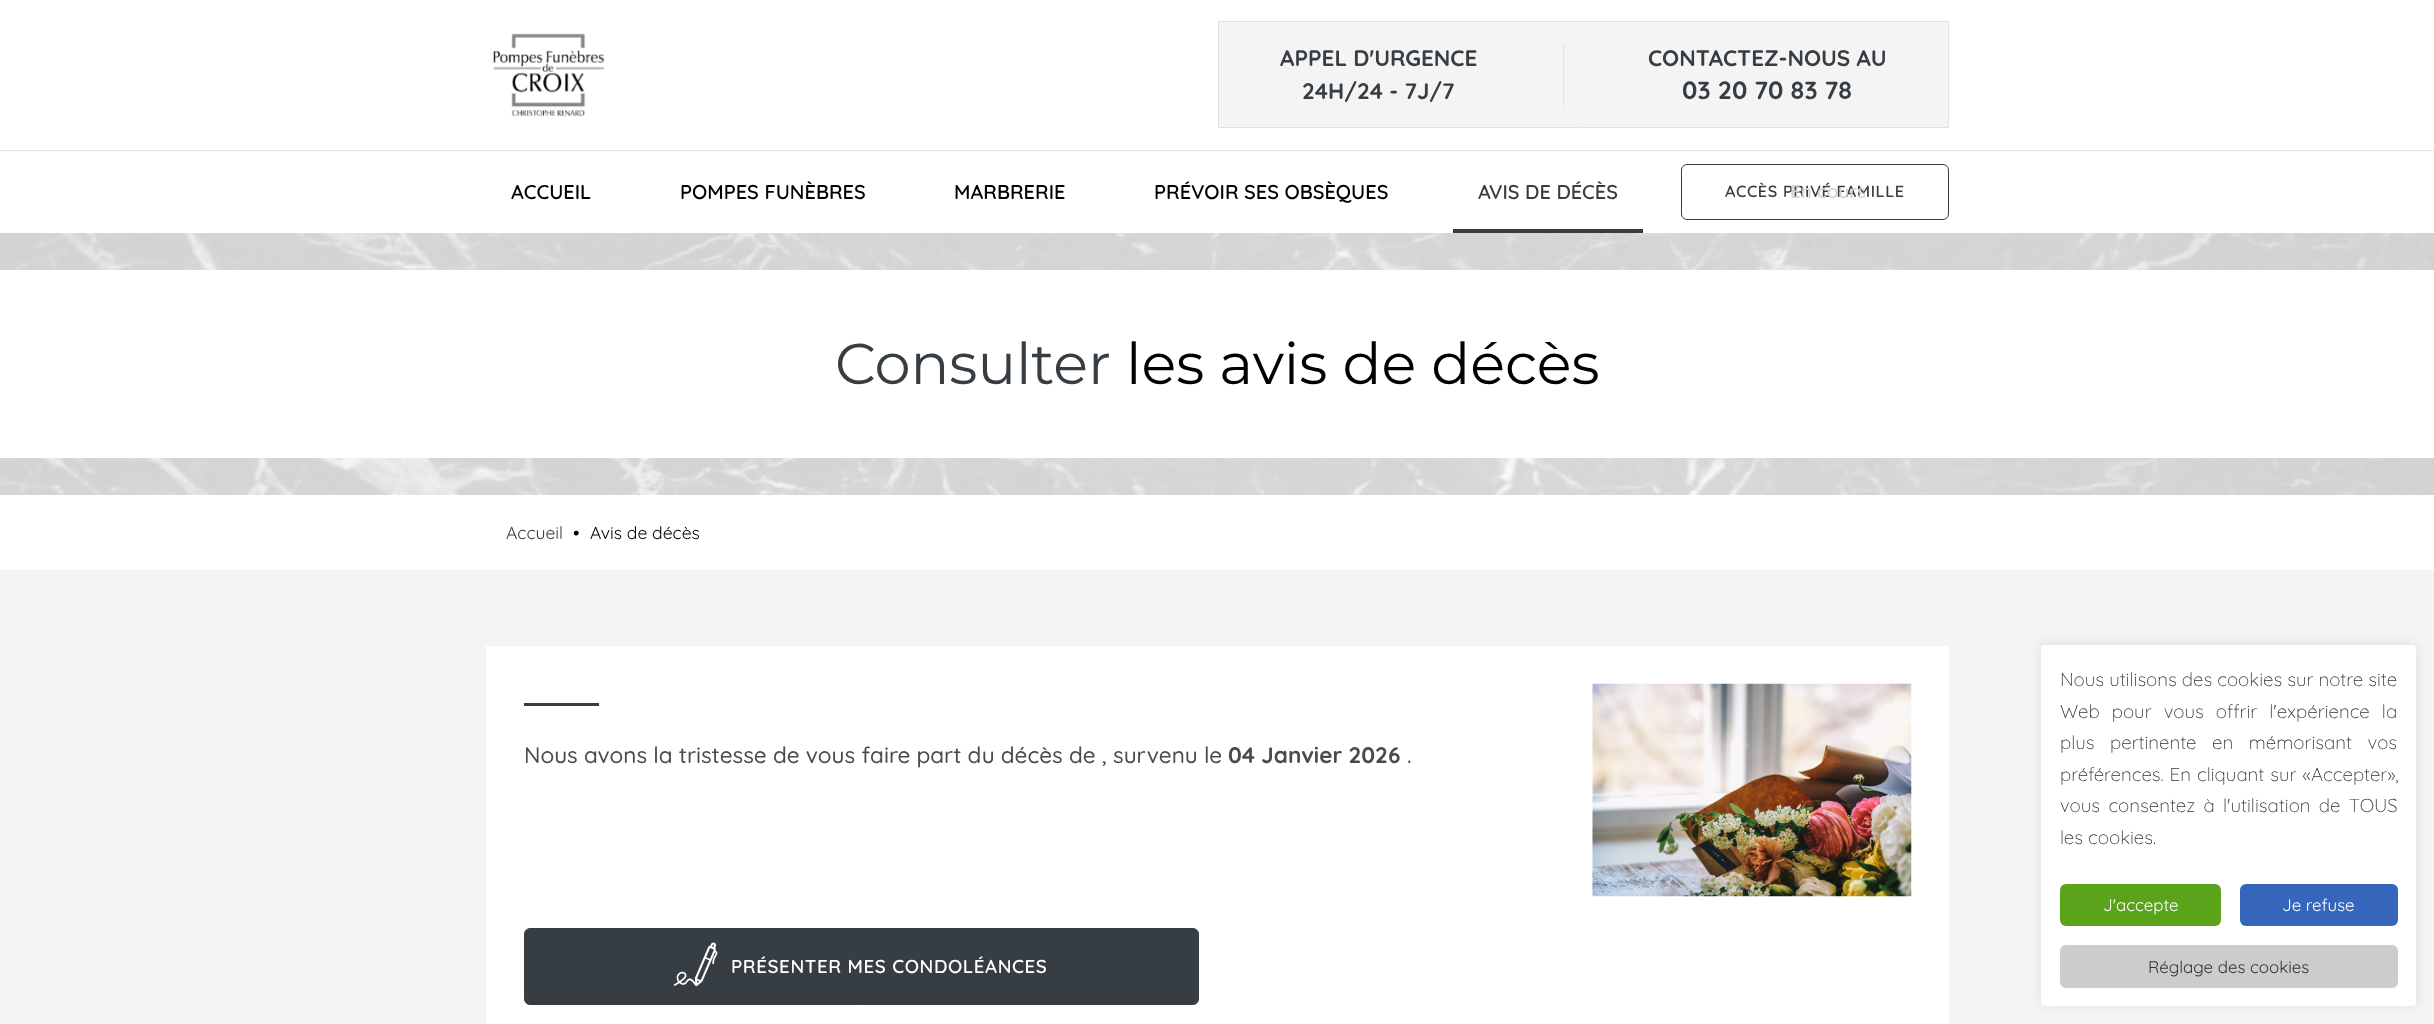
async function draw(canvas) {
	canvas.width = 2434;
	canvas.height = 1024;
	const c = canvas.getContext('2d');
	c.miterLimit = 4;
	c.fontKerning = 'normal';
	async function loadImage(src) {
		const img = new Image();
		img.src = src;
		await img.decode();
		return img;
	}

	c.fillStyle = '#fff';
	c.fillRect(0, 0, 2434, 1024);
	c.drawImage(await loadImage('img1.png'), 493, 33, 112, 84);
	c.fillStyle = '#f5f4f4';
	c.beginPath();
	c.rect(1218.5, 21.5, 730, 106);
	c.fill();
	c.strokeStyle = '#dee2e6';
	c.stroke();
	c.font = 'bold 22.5px Quicksand';
	c.fillStyle = '#363d43';
	c.fillText('APPEL D\'URGENCE', 1280, 66);
	c.fillText('24H/24 - 7J/7', 1302, 99);
	c.fillStyle = '#dee2e6';
	c.fillRect(1563, 44, 1, 62);
	c.fillStyle = '#363d43';
	c.fillText('CONTACTEZ-NOUS AU', 1648, 66);
	c.font = 'bold 25px Quicksand';
	c.fillText('03 20 70 83 78', 1682, 99);
	c.fillStyle = '#dee2e6';
	c.fillRect(0, 150, 2434, 1);
	c.font = '600 20px Quicksand';
	c.fillStyle = '#000';
	for (const [text, x, y] of [
		['ACCUEIL', 511, 199],
		['POMPES FUNÈBRES', 680, 199],
		['MARBRERIE', 954, 199],
		['PRÉVOIR SES OBSÈQUES', 1154, 199],
	]) {
		c.fillText(text, x, y);
	}
	c.fillStyle = '#363d43';
	c.fillText('AVIS DE DÉCÈS', 1478, 199);
	c.fillRect(1453, 229, 190, 4);
	c.beginPath();
	c.roundRect(1681.5, 164.5, 267, 55, 5.5);
	c.strokeStyle = '#363d43';
	c.stroke();
	c.letterSpacing = '0.6px';
	c.font = '600 16.25px Quicksand';
	c.fillText('ACCÈS PRIVÉ FAMILLE', 1725, 197);
	c.letterSpacing = '0px';
	c.font = '600 18.75px Quicksand';
	c.fillStyle = '#d2d4d5';
	c.fillText('En cours', 1790, 198);
	c.drawImage(await loadImage('img2.png'), 0, 233, 2434, 262);
	c.fillStyle = '#fff';
	c.fillRect(0, 270, 2434, 188);
	c.font = '57.5px Montserrat';
	c.fillStyle = '#363d43';
	c.fillText('Consulter', 835, 384);
	c.fillStyle = '#000';
	c.fillText('les avis de décès', 1126, 384);
	c.fillStyle = '#f5f4f4';
	c.fillRect(0, 570, 2434, 454);
	c.font = '17.5px Quicksand';
	c.fillStyle = '#363d43';
	c.fillText('Accueil', 506, 539);
	c.drawImage(await loadImage('img3.png'), 573, 530, 6, 6);
	c.fillStyle = '#000';
	c.fillText('Avis de décès', 590, 539);
	c.fillStyle = '#fff';
	c.fillRect(486, 646, 1463, 378);
	c.fillStyle = '#363d43';
	c.fillRect(524, 703, 75, 3);
	c.font = '500 22.5px Quicksand';
	c.fillStyle = '#4b4b4b';
	c.fillText('Nous avons la tristesse de vous faire part du décès de , survenu le', 524, 763);
	c.font = 'bold 22.5px Quicksand';
	c.fillText('04 Janvier 2026', 1228, 763);
	c.font = '500 22.5px Quicksand';
	c.fillText('.', 1407, 763);
	c.drawImage(await loadImage('img4.png'), 1592, 683, 320, 214);
	c.fillStyle = '#363d43';
	c.beginPath();
	c.roundRect(524.5, 928.5, 674, 76, 5.5);
	c.fill();
	c.stroke();
	c.drawImage(await loadImage('img5.png'), 673, 942, 45, 45);
	c.letterSpacing = '0.6px';
	c.font = '600 18.75px Quicksand';
	c.fillStyle = '#fff';
	c.fillText('PRÉSENTER MES CONDOLÉANCES', 731, 973);
	c.fillStyle = '#acabab4d';
	c.filter = 'blur(6px)';
	c.beginPath();
	c.roundRect(2041, 644, 375, 361, 4);
	c.fill();
	c.filter = 'none';
	c.fillStyle = '#fff';
	c.beginPath();
	c.roundRect(2041, 645, 375, 361, 4);
	c.fill();
	c.letterSpacing = '0px';
	c.font = '300 18.75px Quicksand';
	c.fillStyle = '#333';
	c.fillText('Nous utilisons des cookies sur notre site', 2060, 686);
	c.wordSpacing = '7px';
	c.fillText('Web pour vous offrir l\'expérience la', 2060, 718);
	c.wordSpacing = '10.5px';
	c.fillText('plus pertinente en mémorisant vos', 2060, 749);
	c.wordSpacing = '1px';
	c.fillText('préférences. En cliquant sur «Accepter»,', 2060, 781);
	c.wordSpacing = '3.25px';
	c.fillText('vous consentez à l\'utilisation de TOUS', 2060, 812);
	c.wordSpacing = '0px';
	c.fillText('les cookies.', 2060, 844);
	c.fillStyle = '#5aa31b';
	c.beginPath();
	c.roundRect(2060, 884, 161, 42, 6);
	c.fill();
	c.font = '16.9px Quicksand';
	c.fillStyle = '#fff';
	c.fillText('J\'accepte', 2103, 911);
	c.fillStyle = '#3566bb';
	c.beginPath();
	c.roundRect(2240, 884, 158, 42, 6);
	c.fill();
	c.fillStyle = '#fff';
	c.fillText('Je refuse', 2282, 911);
	c.fillStyle = '#ccc';
	c.beginPath();
	c.roundRect(2060, 945, 338, 43, 6);
	c.fill();
	c.fillStyle = '#333';
	c.fillText('Réglage des cookies', 2148, 973);
}

draw(document.querySelector('canvas'));
